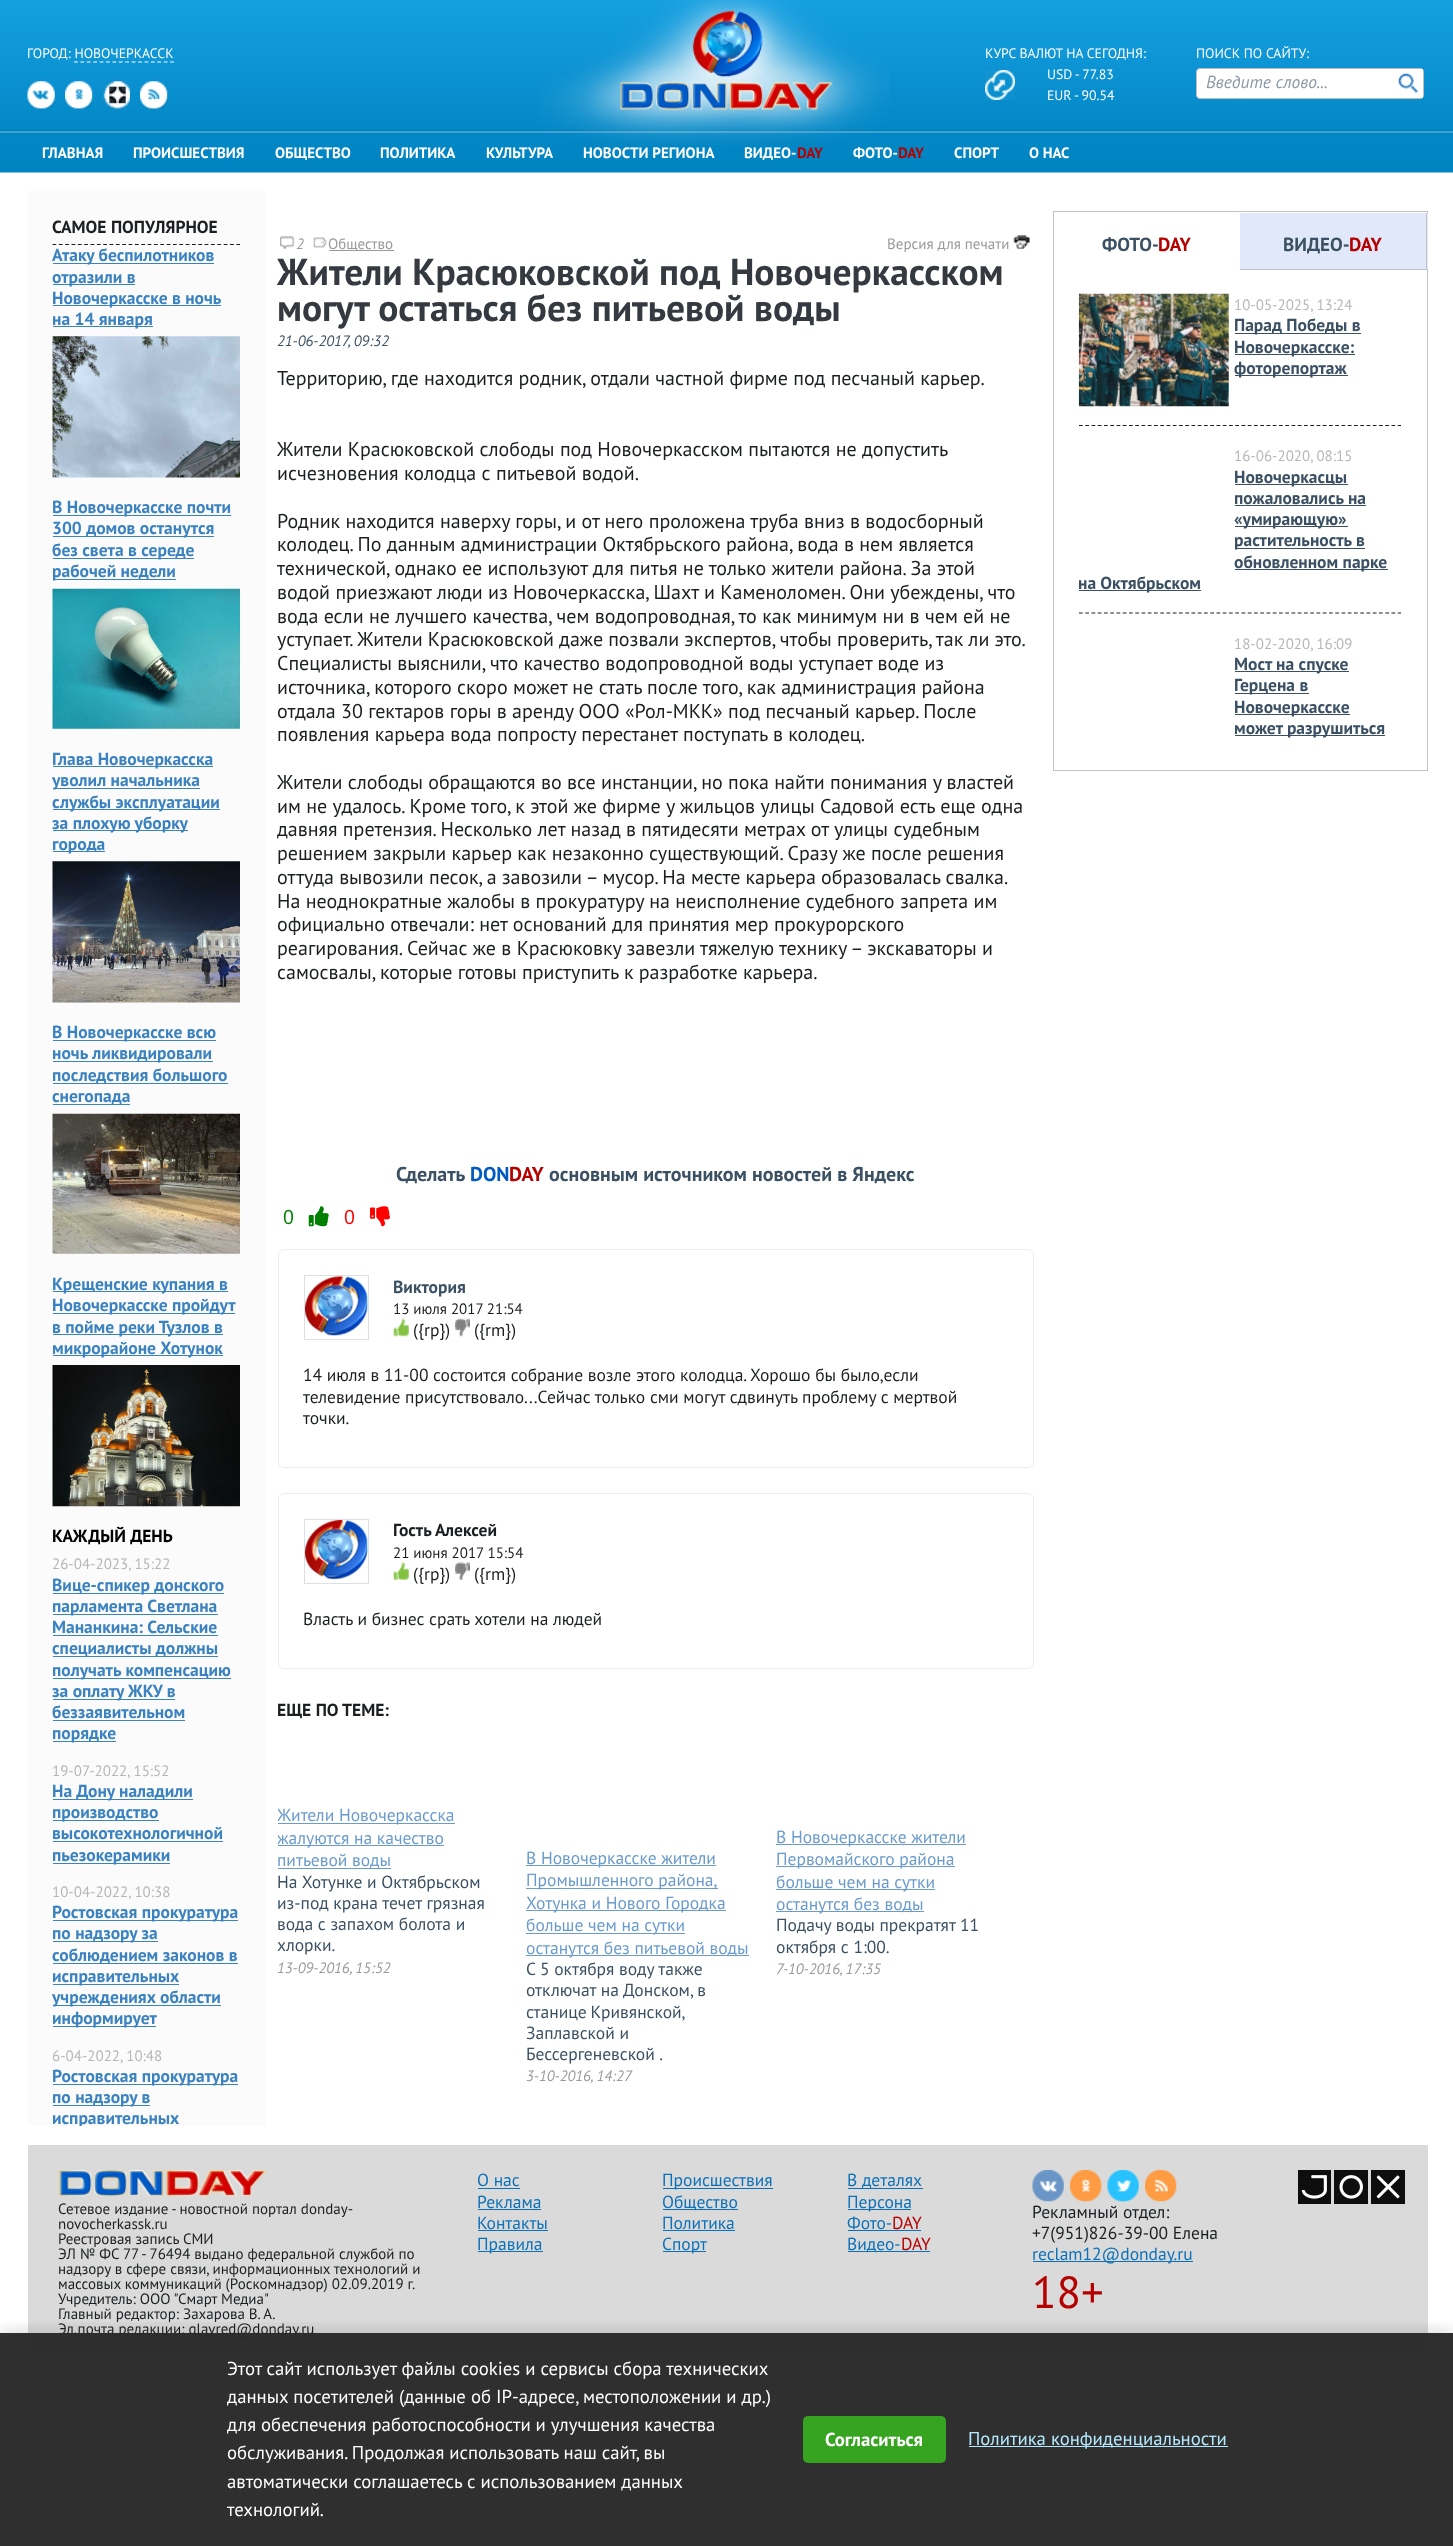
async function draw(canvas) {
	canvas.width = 1453;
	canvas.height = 2546;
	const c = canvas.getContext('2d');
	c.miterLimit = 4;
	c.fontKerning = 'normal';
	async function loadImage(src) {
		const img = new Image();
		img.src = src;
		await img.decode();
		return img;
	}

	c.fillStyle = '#fff';
	c.fillRect(0, 0, 1453, 2546);
	c.drawImage(await loadImage('img1.png'), 0, 0, 1453, 173);
	c.drawImage(await loadImage('img2.png'), 540, 0, 350, 145);
	c.font = '13.75px PT Sans';
	c.fillText('ГОРОД: НОВОЧЕРКАССК', 27, 58);
	c.beginPath();
	c.moveTo(74, 62);
	c.lineTo(174, 62);
	c.strokeStyle = '#fff';
	c.lineWidth = 1.2;
	c.setLineDash([3.75, 2.66]);
	c.stroke();
	c.drawImage(await loadImage('img3.png'), 27, 81, 28, 28);
	c.drawImage(await loadImage('img4.png'), 65, 81, 28, 28);
	c.drawImage(await loadImage('img5.png'), 103, 81, 27, 28);
	c.drawImage(await loadImage('img6.png'), 140, 81, 28, 28);
	c.fillText('КУРС ВАЛЮТ НА СЕГОДНЯ:', 985, 58);
	c.drawImage(await loadImage('img7.png'), 985, 70, 30, 30);
	for (const [text, x, y] of [
		['USD - 77.83', 1047, 79],
		['EUR - 90.54', 1047, 100],
		['ПОИСК ПО САЙТУ:', 1196, 58],
	]) {
		c.fillText(text, x, y);
	}
	c.beginPath();
	c.roundRect(1196.5, 68.5, 227, 30, 3.5);
	c.fill();
	c.strokeStyle = '#bebebe';
	c.lineWidth = 1;
	c.setLineDash([]);
	c.stroke();
	c.font = 'italic 17.5px PT Sans';
	c.fillStyle = '#8b99a8';
	c.fillText('Введите слово...', 1206, 88);
	c.fillStyle = '#fff';
	c.fillRect(1420, 69, 3, 29);
	c.drawImage(await loadImage('img8.png'), 1398, 73, 20, 20);
	c.font = 'bold 15px PT Sans';
	for (const [text, x, y] of [
		['ГЛАВНАЯ', 42, 158],
		['ПРОИСШЕСТВИЯ', 133, 158],
		['ОБЩЕСТВО', 275, 158],
		['ПОЛИТИКА', 380, 158],
		['КУЛЬТУРА', 486, 158],
		['НОВОСТИ РЕГИОНА', 583, 158],
		['ВИДЕО-', 744, 158],
	]) {
		c.fillText(text, x, y);
	}
	c.fillStyle = '#b50000';
	c.fillText('DAY', 797, 158);
	c.fillStyle = '#fff';
	c.fillText('ФОТО-', 853, 158);
	c.fillStyle = '#b50000';
	c.fillText('DAY', 898, 158);
	c.fillStyle = '#fff';
	c.fillText('СПОРТ', 954, 158);
	c.fillText('О НАС', 1029, 158);
	c.fillStyle = '#fbfbfb';
	c.fillRect(28, 191, 237, 1935);
	c.beginPath();
	c.moveTo(52.5, 244.5);
	c.lineTo(240, 244.5);
	c.strokeStyle = '#1b1f21';
	c.lineWidth = 1.2;
	c.setLineDash([3.75, 2.59]);
	c.stroke();
	c.font = 'bold 17.5px PT Sans';
	c.fillStyle = '#1b1f21';
	c.fillText('САМОЕ ПОПУЛЯРНОЕ', 52, 233);
	c.fillStyle = '#3b82c0';
	c.fillRect(53, 263, 161, 1);
	c.fillText('Атаку беспилотников', 52, 261);
	c.fillRect(53, 284, 82, 1);
	c.fillText('отразили в', 52, 283);
	c.fillRect(53, 305, 168, 1);
	c.fillText('Новочеркасске в ночь', 52, 304);
	c.fillRect(53, 326, 100, 1);
	c.fillText('на 14 января', 52, 325);
	c.drawImage(await loadImage('img9.png'), 52, 336, 188, 142);
	c.fillRect(53, 515, 178, 1);
	c.fillText('В Новочеркасске почти', 52, 513);
	c.fillRect(53, 536, 161, 1);
	c.fillText('300 домов останутся', 52, 534);
	c.fillRect(53, 558, 141, 1);
	c.fillText('без света в середе', 52, 556);
	c.fillRect(53, 579, 123, 1);
	c.fillText('рабочей недели', 52, 577);
	c.drawImage(await loadImage('img10.png'), 52, 588, 188, 141);
	c.fillRect(53, 766, 160, 1);
	c.fillText('Глава Новочеркасска', 52, 765);
	c.fillRect(53, 788, 147, 1);
	c.fillText('уволил начальника', 52, 786);
	c.fillRect(53, 809, 167, 1);
	c.fillText('службы эксплуатации', 52, 808);
	c.fillRect(53, 830, 135, 1);
	c.fillText('за плохую уборку', 52, 829);
	c.fillRect(53, 851, 52, 1);
	c.fillText('города', 52, 850);
	c.drawImage(await loadImage('img11.png'), 52, 861, 188, 142);
	c.fillRect(53, 1040, 163, 1);
	c.fillText('В Новочеркасске всю', 52, 1038);
	c.fillRect(53, 1061, 160, 1);
	c.fillText('ночь ликвидировали', 52, 1059);
	c.fillText('последствия большого', 52, 1081);
	c.fillRect(53, 1083, 175, 1);
	c.fillText('снегопада', 52, 1102);
	c.fillRect(53, 1104, 77, 1);
	c.drawImage(await loadImage('img12.png'), 52, 1113, 188, 141);
	c.fillRect(53, 1291, 175, 1);
	c.fillText('Крещенские купания в', 52, 1290);
	c.fillRect(53, 1313, 182, 1);
	c.fillText('Новочеркасске пройдут', 52, 1311);
	c.fillRect(53, 1334, 170, 1);
	c.fillText('в пойме реки Тузлов в', 52, 1333);
	c.fillRect(53, 1355, 170, 1);
	c.fillText('микрорайоне Хотунок', 52, 1354);
	c.drawImage(await loadImage('img13.png'), 52, 1365, 188, 142);
	c.fillStyle = '#000';
	c.fillText('КАЖДЫЙ ДЕНЬ', 52, 1542);
	c.font = '15px PT Sans';
	c.fillStyle = '#b7b7b7';
	c.fillText('26-04-2023, 15:22', 52, 1569);
	c.fillStyle = '#3b82c0';
	c.fillRect(53, 1593, 171, 1);
	c.font = 'bold 17.5px PT Sans';
	c.fillText('Вице-спикер донского', 52, 1591);
	c.fillRect(53, 1614, 165, 1);
	c.fillText('парламента Светлана', 52, 1612);
	c.fillText('Мананкина: Сельские', 52, 1633);
	c.fillRect(53, 1635, 165, 1);
	c.fillText('специалисты должны', 52, 1654);
	c.fillRect(53, 1656, 165, 1);
	c.fillRect(53, 1678, 178, 1);
	c.fillText('получать компенсацию', 52, 1676);
	c.fillRect(53, 1699, 122, 1);
	c.fillText('за оплату ЖКУ в', 52, 1697);
	c.fillText('беззаявительном', 52, 1718);
	c.fillRect(53, 1720, 132, 1);
	c.fillRect(53, 1741, 63, 1);
	c.fillText('порядке', 52, 1739);
	c.font = '15px PT Sans';
	c.fillStyle = '#b7b7b7';
	c.fillText('19-07-2022, 15:52', 52, 1776);
	c.fillStyle = '#3b82c0';
	c.fillRect(53, 1799, 140, 1);
	c.font = 'bold 17.5px PT Sans';
	c.fillText('На Дону наладили', 52, 1797);
	c.fillRect(53, 1820, 106, 1);
	c.fillText('производство', 52, 1818);
	c.fillText('высокотехнологичной', 52, 1839);
	c.fillRect(53, 1841, 170, 1);
	c.fillRect(53, 1863, 117, 1);
	c.fillText('пьезокерамики', 52, 1861);
	c.font = '15px PT Sans';
	c.fillStyle = '#b7b7b7';
	c.fillText('10-04-2022, 10:38', 52, 1897);
	c.fillStyle = '#3b82c0';
	c.fillRect(53, 1920, 185, 1);
	c.font = 'bold 17.5px PT Sans';
	c.fillText('Ростовская прокуратура', 52, 1918);
	c.fillRect(53, 1941, 105, 1);
	c.fillText('по надзору за', 52, 1939);
	c.fillText('соблюдением законов в', 52, 1961);
	c.fillRect(53, 1963, 185, 1);
	c.fillRect(53, 1984, 126, 1);
	c.fillText('исправительных', 52, 1982);
	c.fillRect(53, 2005, 168, 1);
	c.fillText('учреждениях области', 52, 2003);
	c.fillRect(53, 2026, 103, 1);
	c.fillText('информирует', 52, 2024);
	c.font = '15px PT Sans';
	c.fillStyle = '#b7b7b7';
	c.fillText('6-04-2022, 10:48', 52, 2061);
	c.fillStyle = '#3b82c0';
	c.fillRect(53, 2084, 185, 1);
	c.font = 'bold 17.5px PT Sans';
	c.fillText('Ростовская прокуратура', 52, 2082);
	c.fillRect(53, 2105, 97, 1);
	c.fillText('по надзору в', 52, 2103);
	c.save();
	c.beginPath();
	c.rect(28, 191, 1400, 1935);
	c.clip();
	c.fillText('исправительных', 52, 2124);
	c.restore();
	c.drawImage(await loadImage('img14.png'), 280, 236, 14, 13);
	c.font = 'italic 15px PT Sans';
	c.fillStyle = '#999';
	c.fillText('2', 296, 249);
	c.drawImage(await loadImage('img15.png'), 313, 237, 14, 11);
	c.fillRect(329, 250, 65, 1);
	c.font = '15px PT Sans';
	c.fillText('Общество', 328, 249);
	c.fillText('Версия для печати', 887, 249);
	c.drawImage(await loadImage('img16.png'), 1013, 235, 17, 14);
	c.font = 'bold 37.5px PT Sans';
	c.fillStyle = '#353a40';
	c.fillText('Жители Красюковской под Новочеркасском', 277, 285);
	c.fillText('могут остаться без питьевой воды', 277, 321);
	c.font = 'italic 15px PT Sans';
	c.fillStyle = '#3b5163';
	c.fillText('21-06-2017, 09:32', 277, 346);
	c.font = '20px PT Sans';
	c.fillStyle = '#1b1f21';
	for (const [text, x, y] of [
		['Территорию, где находится родник, отдали частной фирме под песчаный карьер.', 277, 385],
		['Жители Красюковской слободы под Новочеркасском пытаются не допустить', 277, 456],
		['исчезновения колодца с питьевой водой.', 277, 480],
		['Родник находится наверху горы, и от него проложена труба вниз в водосборный', 277, 528],
		['колодец. По данным администрации Октябрьского района, вода в нем является', 277, 551],
		['технической, однако ее используют для питья не только жители района. За этой', 277, 575],
		['водой приезжают люди из Новочеркасска, Шахт и Каменоломен. Они убеждены, что', 277, 599],
		['вода если не лучшего качества, чем водопроводная, то как минимум ни в чем ей не', 277, 623],
	]) {
		c.fillText(text, x, y);
	}
	c.wordSpacing = '-0.25px';
	c.fillText('уступает. Жители Красюковской даже позвали экспертов, чтобы проверить, так ли это.', 277, 646);
	c.wordSpacing = '0px';
	for (const [text, x, y] of [
		['Специалисты выяснили, что качество водопроводной воды уступает воде из', 277, 670],
		['источника, которого скоро может не стать после того, как администрация района', 277, 694],
		['отдала 30 гектаров горы в аренду ООО «Рол-МКК» под песчаный карьер. После', 277, 718],
		['появления карьера вода попросту перестанет поступать в колодец.', 277, 741],
		['Жители слободы обращаются во все инстанции, но пока найти понимания у властей', 277, 789],
		['им не удалось. Кроме того, к этой же фирме у жильцов улицы Садовой есть еще одна', 277, 813],
		['давняя претензия. Несколько лет назад в пятидесяти метрах от улицы судебным', 277, 836],
		['решением закрыли карьер как незаконно существующий. Сразу же после решения', 277, 860],
	]) {
		c.fillText(text, x, y);
	}
	c.wordSpacing = '-0.1px';
	c.fillText('оттуда вывозили песок, а завозили – мусор. На месте карьера образовалась свалка.', 277, 884);
	c.wordSpacing = '0px';
	for (const [text, x, y] of [
		['На неоднократные жалобы в прокуратуру на неисполнение судебного запрета им', 277, 908],
		['официально отвечали: нет оснований для принятия мер прокурорского', 277, 931],
		['реагирования. Сейчас же в Красюковку завезли тяжелую технику – экскаваторы и', 277, 955],
		['самосвалы, которые готовы приступить к разработке карьера.', 277, 979],
	]) {
		c.fillText(text, x, y);
	}
	c.font = 'bold 20px PT Sans';
	c.fillStyle = '#3b5163';
	c.fillText('Сделать', 396, 1181);
	c.fillStyle = '#005ac1';
	c.fillText('DON', 470, 1181);
	c.fillStyle = '#b50000';
	c.fillText('DAY', 509, 1181);
	c.fillStyle = '#3b5163';
	c.fillText('основным источником новостей в Яндекс', 549, 1181);
	c.font = '20px PT Sans';
	c.fillStyle = '#008000';
	c.fillText('0', 283, 1224);
	c.drawImage(await loadImage('img17.png'), 308, 1206, 21, 21);
	c.fillStyle = '#f00';
	c.fillText('0', 344, 1224);
	c.drawImage(await loadImage('img18.png'), 370, 1206, 20, 21);
	c.beginPath();
	c.roundRect(278.5, 1249.5, 755, 218, 5.5);
	c.strokeStyle = '#ededed';
	c.lineWidth = 1;
	c.setLineDash([]);
	c.stroke();
	c.strokeStyle = '#dce0e2';
	c.strokeRect(304.5, 1275.5, 64, 64);
	c.drawImage(await loadImage('img19.png'), 305, 1276, 63, 60);
	c.font = 'bold 17.5px PT Sans';
	c.fillStyle = '#3b5163';
	c.fillText('Виктория', 393, 1293);
	c.font = '15px PT Sans';
	c.fillStyle = '#1b1f21';
	c.fillText('13 июля 2017 21:54', 393, 1314);
	c.drawImage(await loadImage('img20.png'), 393, 1318, 16, 19);
	c.font = '17.5px PT Sans';
	c.fillText('({rp})', 413, 1336);
	c.drawImage(await loadImage('img21.png'), 455, 1318, 15, 19);
	for (const [text, x, y] of [
		['({rm})', 474, 1336],
		['14 июля в 11-00 состоится собрание возле этого колодца. Хорошо бы было,если', 303, 1381],
		['телевидение присутствовало...Сейчас только сми могут сдвинуть проблему с мертвой', 303, 1403],
		['точки.', 303, 1424],
	]) {
		c.fillText(text, x, y);
	}
	c.beginPath();
	c.roundRect(278.5, 1493.5, 755, 175, 5.5);
	c.strokeStyle = '#ededed';
	c.stroke();
	c.strokeStyle = '#dce0e2';
	c.strokeRect(304.5, 1519.5, 64, 64);
	c.drawImage(await loadImage('img22.png'), 305, 1520, 63, 60);
	c.font = 'bold 17.5px PT Sans';
	c.fillText('Гость Алексей', 393, 1536);
	c.font = '15px PT Sans';
	c.fillText('21 июня 2017 15:54', 393, 1558);
	c.drawImage(await loadImage('img23.png'), 393, 1562, 16, 18);
	c.font = '17.5px PT Sans';
	c.fillText('({rp})', 413, 1580);
	c.drawImage(await loadImage('img24.png'), 455, 1562, 15, 18);
	c.fillText('({rm})', 474, 1580);
	c.fillText('Власть и бизнес срать хотели на людей', 303, 1625);
	c.font = 'bold 17.5px PT Sans';
	c.fillText('ЕЩЕ ПО ТЕМЕ:', 277, 1716);
	c.fillStyle = '#6a9bcc';
	c.fillRect(278, 1823, 177, 1);
	c.save();
	c.beginPath();
	c.rect(278, 1740, 226, 364);
	c.clip();
	c.font = '17.5px PT Sans';
	c.fillText('Жители Новочеркасска', 277, 1821);
	c.restore();
	c.fillRect(278, 1845, 166, 1);
	c.save();
	c.beginPath();
	c.rect(278, 1740, 226, 364);
	c.clip();
	c.font = '17.5px PT Sans';
	c.fillText('жалуются на качество', 277, 1844);
	c.restore();
	c.fillRect(278, 1868, 113, 1);
	c.font = '17.5px PT Sans';
	c.fillText('питьевой воды', 277, 1866);
	c.fillStyle = '#3b5163';
	for (const [text, x, y] of [
		['На Хотунке и Октябрьском', 277, 1888],
		['из-под крана течет грязная', 277, 1909],
		['вода с запахом болота и', 277, 1930],
		['хлорки.', 277, 1951],
	]) {
		c.fillText(text, x, y);
	}
	c.font = 'italic 15px PT Sans';
	c.fillStyle = '#999';
	c.fillText('13-09-2016, 15:52', 277, 1973);
	c.fillStyle = '#6a9bcc';
	c.fillRect(526, 1865, 190, 1);
	c.font = '17.5px PT Sans';
	c.fillText('В Новочеркасске жители', 526, 1864);
	c.fillRect(526, 1888, 192, 1);
	c.fillText('Промышленного района,', 526, 1886);
	c.fillRect(526, 1910, 200, 1);
	c.fillText('Хотунка и Нового Городка', 526, 1909);
	c.fillRect(526, 1933, 159, 1);
	c.fillText('больше чем на сутки', 526, 1931);
	c.fillRect(526, 1955, 223, 1);
	c.fillText('останутся без питьевой воды', 526, 1954);
	c.fillStyle = '#3b5163';
	c.fillText('С 5 октября воду также', 526, 1975);
	c.fillText('отключат на Донском, в', 526, 1996);
	c.wordSpacing = '-1px';
	c.fillText('станице Кривянской,', 526, 2018);
	c.wordSpacing = '0px';
	c.fillText('Заплавской и', 526, 2039);
	c.fillText('Бессергеневской .', 526, 2060);
	c.font = 'italic 15px PT Sans';
	c.fillStyle = '#999';
	c.fillText('3-10-2016, 14:27', 526, 2081);
	c.fillStyle = '#6a9bcc';
	c.fillRect(776, 1844, 190, 1);
	c.font = '17.5px PT Sans';
	c.fillText('В Новочеркасске жители', 776, 1843);
	c.fillRect(776, 1866, 179, 1);
	c.fillText('Первомайского района', 776, 1865);
	c.fillRect(776, 1889, 159, 1);
	c.fillText('больше чем на сутки', 776, 1888);
	c.fillRect(776, 1911, 148, 1);
	c.fillText('останутся без воды', 776, 1910);
	c.fillStyle = '#3b5163';
	c.fillText('Подачу воды прекратят 11', 776, 1931);
	c.fillText('октября с 1:00.', 776, 1953);
	c.font = 'italic 15px PT Sans';
	c.fillStyle = '#999';
	c.fillText('7-10-2016, 17:35', 776, 1974);
	c.strokeStyle = '#c3c3c7';
	c.strokeRect(1053.5, 211.5, 374, 559);
	c.font = 'bold 19px PT Sans';
	c.fillStyle = '#3b5163';
	c.fillText('ФОТО-', 1102, 251);
	c.fillStyle = '#b50000';
	c.fillText('DAY', 1158, 251);
	c.beginPath();
	c.moveTo(1079, 425.5);
	c.lineTo(1401, 425.5);
	c.strokeStyle = '#1b1f21';
	c.lineWidth = 1.2;
	c.setLineDash([3.75, 2.5]);
	c.stroke();
	c.drawImage(await loadImage('img25.png'), 1078, 293, 151, 114);
	c.font = '15px PT Sans';
	c.fillStyle = '#b7b7b7';
	c.fillText('10-05-2025, 13:24', 1234, 310);
	c.fillStyle = '#3b5163';
	c.fillRect(1235, 333, 126, 1);
	c.font = 'bold 17.5px PT Sans';
	c.fillText('Парад Победы в', 1234, 331);
	c.fillRect(1235, 354, 120, 1);
	c.fillText('Новочеркасске:', 1234, 353);
	c.fillRect(1235, 375, 113, 1);
	c.fillText('фоторепортаж', 1234, 374);
	c.beginPath();
	c.moveTo(1079, 613);
	c.lineTo(1401, 613);
	c.stroke();
	c.font = '15px PT Sans';
	c.fillStyle = '#b7b7b7';
	c.fillText('16-06-2020, 08:15', 1234, 461);
	c.fillStyle = '#3b5163';
	c.fillRect(1235, 484, 113, 1);
	c.font = 'bold 17.5px PT Sans';
	c.fillText('Новочеркасцы', 1234, 483);
	c.fillText('пожаловались на', 1234, 504);
	c.fillRect(1235, 505, 131, 1);
	c.fillRect(1235, 526, 113, 1);
	c.fillText('«умирающую»', 1234, 525);
	c.fillRect(1235, 548, 130, 1);
	c.fillText('растительность в', 1234, 546);
	c.fillRect(1235, 569, 153, 1);
	c.fillText('обновленном парке', 1234, 568);
	c.fillRect(1079, 590, 122, 1);
	c.fillText('на Октябрьском', 1078, 589);
	c.font = '15px PT Sans';
	c.fillStyle = '#b7b7b7';
	c.fillText('18-02-2020, 16:09', 1234, 649);
	c.fillStyle = '#3b5163';
	c.fillRect(1235, 671, 114, 1);
	c.font = 'bold 17.5px PT Sans';
	c.fillText('Мост на спуске', 1234, 670);
	c.fillRect(1235, 693, 74, 1);
	c.fillText('Герцена в', 1234, 691);
	c.fillRect(1235, 714, 115, 1);
	c.fillText('Новочеркасске', 1234, 713);
	c.fillRect(1235, 735, 150, 1);
	c.fillText('может разрушиться', 1234, 734);
	for (const [x, y, w, h, color] of [
		[1240, 213, 188, 56, '#e0e8fa'],
		[1426, 213, 1, 57, '#c3c3c7'],
		[1240, 269, 188, 1, '#c3c3c7'],
	]) {
		c.fillStyle = color;
		c.fillRect(x, y, w, h);
	}
	c.font = 'bold 19px PT Sans';
	c.fillStyle = '#3b5163';
	c.fillText('ВИДЕО-', 1283, 251);
	c.fillStyle = '#b50000';
	c.fillText('DAY', 1349, 251);
	c.fillStyle = '#dadada';
	c.fillRect(28, 2145, 1400, 213);
	c.drawImage(await loadImage('img26.png'), 58, 2170, 210, 27);
	c.font = '15px PT Sans';
	c.fillStyle = '#1b1f21';
	for (const [text, x, y] of [
		['Сетевое издание - новостной портал donday-', 58, 2214],
		['novocherkassk.ru', 58, 2229],
		['Реестровая запись СМИ', 58, 2244],
		['ЭЛ № ФС 77 - 76494 выдано федеральной службой по', 58, 2259],
		['надзору в сфере связи, информационных технологий и', 58, 2274],
		['массовых коммуникаций (Роскомнадзор) 02.09.2019 г.', 58, 2289],
		['Учредитель: ООО "Смарт Медиа"', 58, 2304],
		['Главный редактор: Захарова В. А.', 58, 2319],
		['Эл.почта редакции: glavred@donday.ru', 58, 2334],
	]) {
		c.fillText(text, x, y);
	}
	c.font = '17.5px PT Sans';
	c.fillStyle = '#0c71b9';
	c.fillText('О нас', 477, 2186);
	c.fillRect(478, 2188, 42, 1);
	c.fillText('Реклама', 477, 2208);
	c.fillRect(478, 2209, 63, 1);
	c.fillText('Контакты', 477, 2229);
	c.fillRect(478, 2230, 70, 1);
	c.fillRect(478, 2251, 65, 1);
	c.fillText('Правила', 477, 2250);
	c.fillRect(663, 2188, 110, 1);
	c.fillText('Происшествия', 662, 2186);
	c.fillRect(663, 2209, 75, 1);
	c.fillText('Общество', 662, 2208);
	c.fillText('Политика', 662, 2229);
	c.fillRect(663, 2230, 72, 1);
	c.fillRect(663, 2251, 43, 1);
	c.fillText('Спорт', 662, 2250);
	c.fillRect(848, 2188, 75, 1);
	c.fillText('В деталях', 847, 2186);
	c.fillRect(848, 2209, 63, 1);
	c.fillText('Персона', 847, 2208);
	c.fillText('Фото-', 847, 2229);
	c.fillRect(848, 2230, 73, 1);
	c.fillStyle = '#b50000';
	c.fillText('DAY', 892, 2229);
	c.fillStyle = '#0c71b9';
	c.fillRect(848, 2251, 82, 1);
	c.fillText('Видео-', 847, 2250);
	c.fillStyle = '#b50000';
	c.fillText('DAY', 901, 2250);
	c.drawImage(await loadImage('img27.png'), 1032, 2170, 32, 32);
	c.drawImage(await loadImage('img28.png'), 1070, 2170, 32, 32);
	c.drawImage(await loadImage('img29.png'), 1107, 2170, 32, 32);
	c.drawImage(await loadImage('img30.png'), 1145, 2170, 32, 32);
	c.fillStyle = '#1b1f21';
	c.fillText('Рекламный отдел:', 1032, 2218);
	c.fillText('+7(951)826-39-00 Елена', 1032, 2239);
	c.fillStyle = '#0c71b9';
	c.fillRect(1033, 2261, 160, 1);
	c.fillText('reclam12@donday.ru', 1032, 2260);
	c.font = '45px PT Sans';
	c.fillStyle = '#b50000';
	c.fillText('18+', 1032, 2308);
	c.drawImage(await loadImage('img31.png'), 1298, 2170, 107, 34);
	c.save();
	c.beginPath();
	c.rect(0, 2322, 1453, 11);
	c.clip();
	c.fillStyle = '#00000021';
	c.filter = 'blur(7.5px)';
	c.beginPath();
	c.rect(0, 2330, 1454, 214);
	c.fill();
	c.filter = 'none';
	c.restore();
	c.fillStyle = '#282828f7';
	c.fillRect(0, 2333, 1453, 213);
	c.font = '18.75px PT Sans';
	c.fillStyle = '#fff';
	for (const [text, x, y] of [
		['Этот сайт использует файлы cookies и сервисы сбора технических', 227, 2375],
		['данных посетителей (данные об IP-адресе, местоположении и др.)', 227, 2403],
		['для обеспечения работоспособности и улучшения качества', 227, 2431],
		['обслуживания. Продолжая использовать наш сайт, вы', 227, 2459],
		['автоматически соглашаетесь с использованием данных', 227, 2488],
		['технологий.', 227, 2516],
	]) {
		c.fillText(text, x, y);
	}
	c.fillStyle = '#36a420';
	c.beginPath();
	c.roundRect(803, 2416, 143, 47, 5);
	c.fill();
	c.font = 'bold 18.75px PT Sans';
	c.fillStyle = '#fff';
	c.fillText('Согласиться', 825, 2446);
	c.fillStyle = '#b4eaff';
	c.fillRect(969, 2446, 259, 1);
	c.font = '18.75px PT Sans';
	c.fillText('Политика конфиденциальности', 968, 2445);
}

draw(document.querySelector('canvas'));
